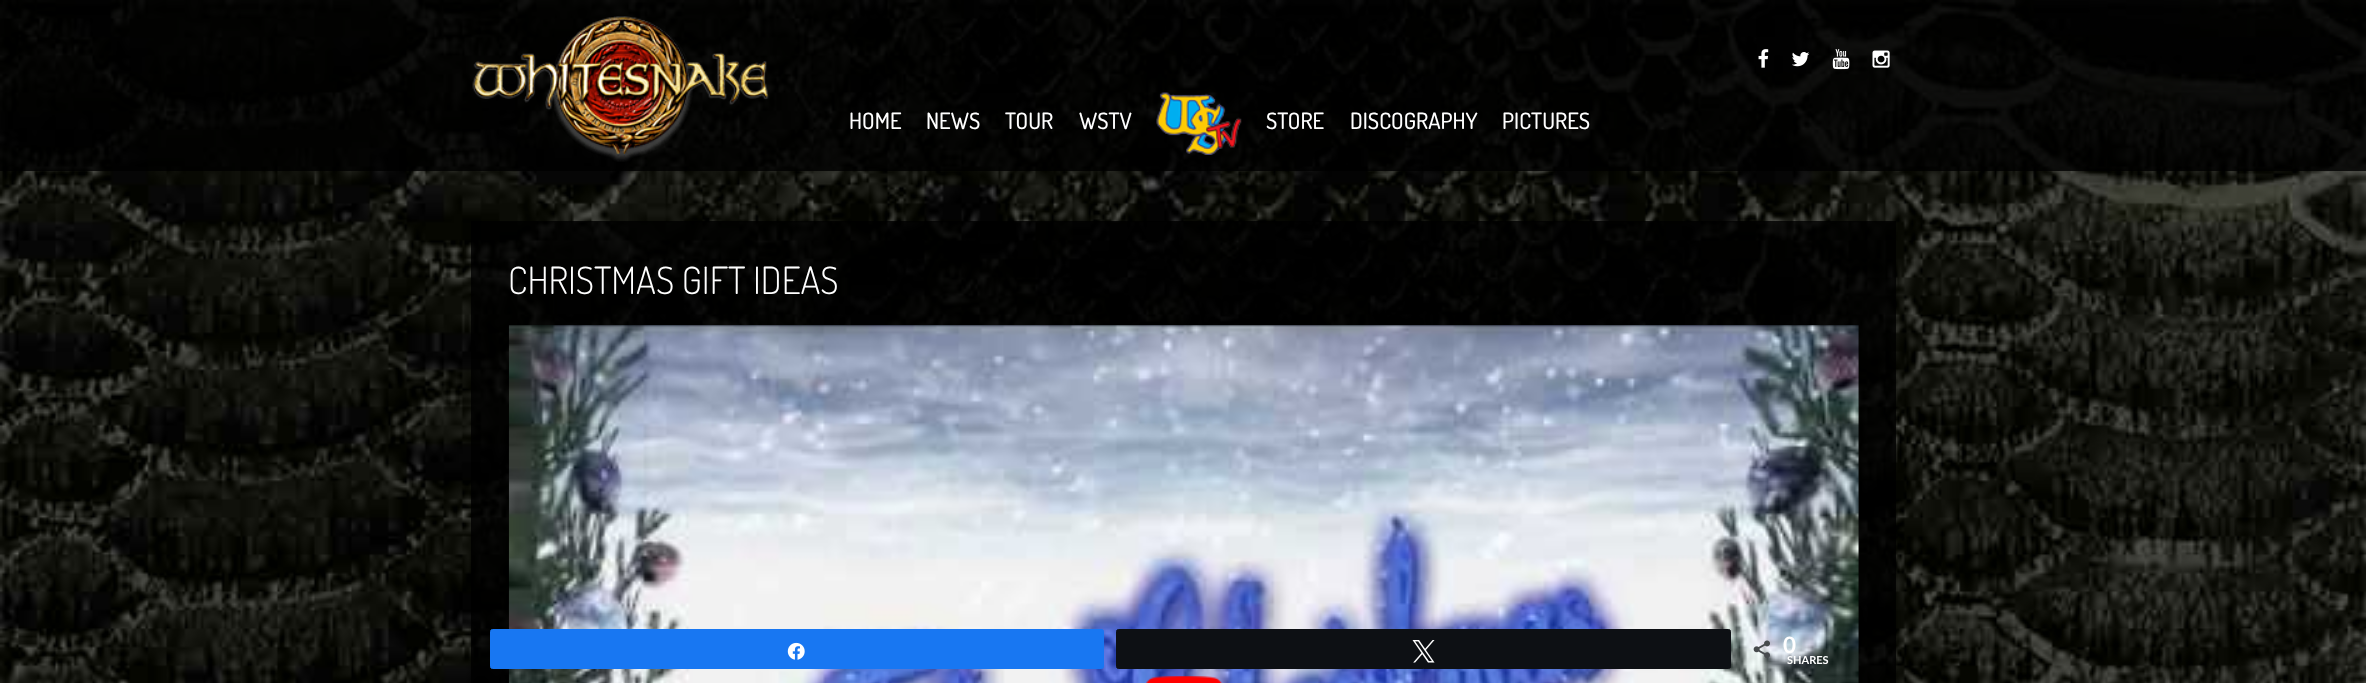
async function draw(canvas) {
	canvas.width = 2366;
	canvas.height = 683;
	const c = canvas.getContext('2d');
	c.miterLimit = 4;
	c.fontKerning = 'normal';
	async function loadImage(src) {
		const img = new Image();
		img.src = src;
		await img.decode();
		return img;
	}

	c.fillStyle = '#fff';
	c.fillRect(0, 0, 2366, 683);
	c.drawImage(await loadImage('img1.png'), 0, 0, 2366, 683);
	c.fillStyle = '#000000cc';
	c.fillRect(0, 0, 2366, 171);
	c.drawImage(await loadImage('img2.png'), 472, 16, 297, 146);
	c.drawImage(await loadImage('img3.png'), 1758, 49, 11, 19);
	c.drawImage(await loadImage('img4.png'), 1792, 52, 18, 15);
	c.drawImage(await loadImage('img5.png'), 1832, 49, 18, 21);
	c.drawImage(await loadImage('img6.png'), 1872, 50, 18, 18);
	c.font = '500 22.5px Dosis';
	c.fillStyle = '#fff';
	for (const [text, x, y] of [
		['HOME', 849, 129],
		['NEWS', 926, 129],
		['TOUR', 1005, 129],
		['WSTV', 1079, 129],
	]) {
		c.fillText(text, x, y);
	}
	c.drawImage(await loadImage('img7.png'), 1156, 92, 86, 63);
	for (const [text, x, y] of [
		['STORE', 1266, 129],
		['DISCOGRAPHY', 1350, 129],
		['PICTURES', 1502, 129],
	]) {
		c.fillText(text, x, y);
	}
	c.fillStyle = '#000000cc';
	c.fillRect(471, 221, 1425, 462);
	c.font = '300 37.5px Dosis';
	c.fillStyle = '#fff';
	c.fillText('CHRISTMAS GIFT IDEAS', 508, 294);
	c.drawImage(await loadImage('img8.png'), 508, 325, 1351, 358);
	c.drawImage(await loadImage('img9.png'), 1146, 676, 76, 7);
	c.fillStyle = '#1877f2';
	c.beginPath();
	c.roundRect(490.5, 629.5, 613, 39, 2);
	c.fill();
	c.strokeStyle = '#1877f2';
	c.stroke();
	c.drawImage(await loadImage('img10.png'), 787, 642, 18, 18);
	c.fillStyle = '#0d1014';
	c.beginPath();
	c.roundRect(1116.5, 629.5, 614, 39, 2);
	c.fill();
	c.strokeStyle = '#0d1014';
	c.stroke();
	c.drawImage(await loadImage('img11.png'), 1412, 640, 23, 23);
	c.drawImage(await loadImage('img12.png'), 1753, 640, 17, 18);
	c.font = 'bold 22.5px Lato';
	c.fillStyle = '#fff';
	c.fillText('0', 1783, 653);
	c.font = 'bold 11px Lato';
	c.fillText('SHARES', 1787, 664);
}

draw(document.querySelector('canvas'));
